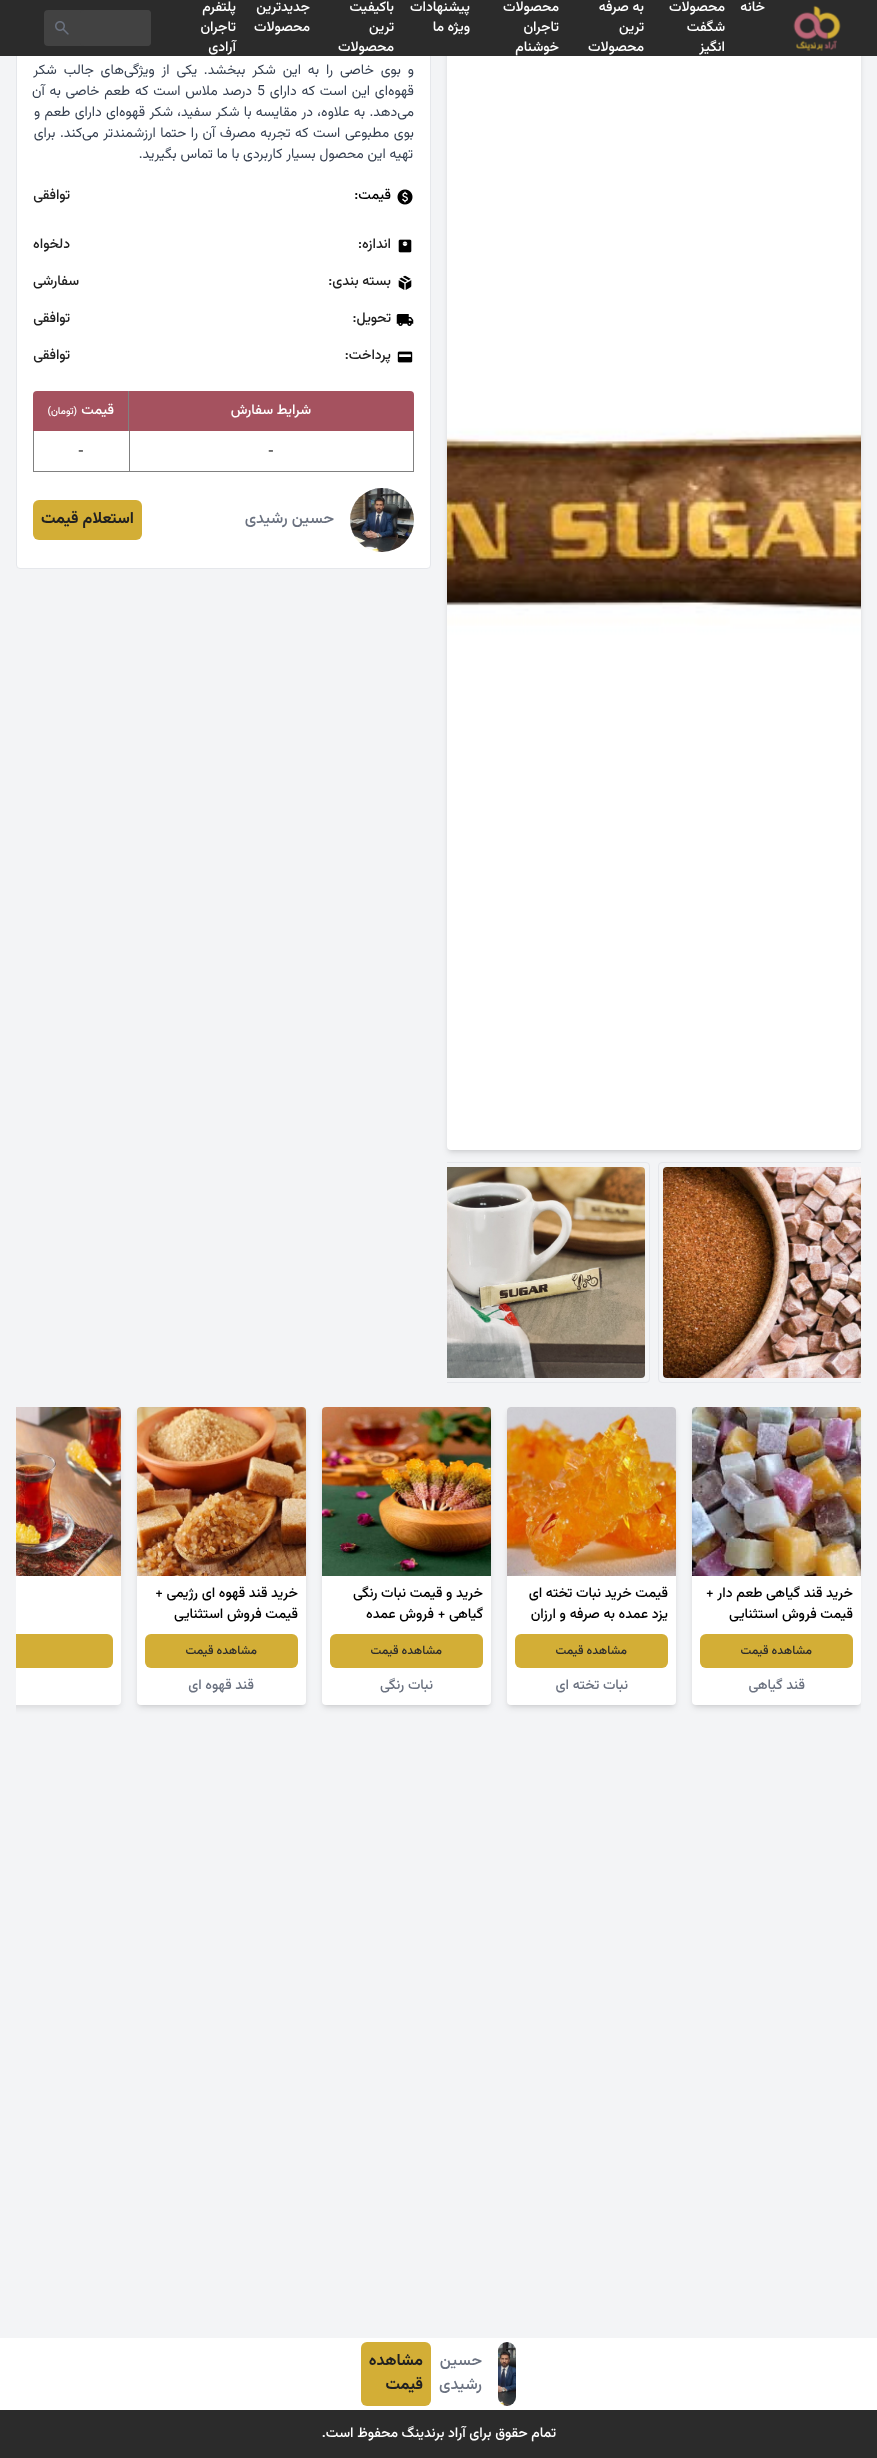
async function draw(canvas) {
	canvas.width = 877;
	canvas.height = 2458;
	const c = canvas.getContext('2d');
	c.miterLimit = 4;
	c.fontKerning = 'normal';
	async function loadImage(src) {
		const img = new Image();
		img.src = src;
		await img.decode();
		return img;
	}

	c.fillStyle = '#fff';
	c.fillRect(0, 0, 877, 2458);
	c.fillStyle = '#f3f4f6';
	c.fillRect(0, 56, 877, 2282);
	c.fillStyle = '#0000001a';
	c.filter = 'blur(2px)';
	c.beginPath();
	c.roundRect(449, -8, 410, 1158, 2);
	c.fill();
	c.filter = 'none';
	c.filter = 'blur(3px)';
	c.beginPath();
	c.roundRect(448, -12, 412, 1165, 3);
	c.fill();
	c.filter = 'none';
	c.fillStyle = '#fff';
	c.beginPath();
	c.roundRect(16.5, -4.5, 414, 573, 3.5);
	c.fill();
	c.strokeStyle = '#e5e7eb';
	c.stroke();
	c.fillStyle = '#2b2b2b';
	c.fillRect(0, 0, 877, 56);
	c.drawImage(await loadImage('img1.png'), 793, 5, 48, 46);
	c.direction = 'rtl';
	c.font = '500 14px Vazirmatn';
	c.fillStyle = '#fff';
	for (const [text, x, y] of [
		['خانه', 765, 11],
		['محصولات', 725, 11],
		['شگفت', 725, 31],
		['انگیز', 725, 51],
		['به صرفه', 644, 11],
		['ترین', 644, 31],
		['محصولات', 644, 51],
		['محصولات', 559, 11],
		['تاجران', 559, 31],
		['خوشنام', 559, 51],
		['پیشنهادات', 470, 11],
		['ویژه ما', 470, 31],
		['باکیفیت', 394, 11],
		['ترین', 394, 31],
		['محصولات', 394, 51],
		['جدیدترین', 310, 11],
		['محصولات', 310, 31],
		['پلتفرم', 236, 11],
		['تاجران', 236, 31],
		['آرادی', 236, 51],
	]) {
		c.fillText(text, x, y);
	}
	c.fillStyle = '#424242';
	c.beginPath();
	c.roundRect(44, 10, 107, 36, 4);
	c.fill();
	c.beginPath();
	c.roundRect(80, 10, 71, 36, 4);
	c.fill();
	c.drawImage(await loadImage('img2.png'), 55, 21, 14, 14);
	c.drawImage(await loadImage('img3.png'), 447, 56, 414, 1094);
	c.save();
	c.beginPath();
	c.rect(447, 1162, 414, 245);
	c.clip();
	c.beginPath();
	c.roundRect(658.5, 1162.5, 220, 220, 3.5);
	c.stroke();
	c.restore();
	c.drawImage(await loadImage('img4.png'), 663, 1167, 198, 211);
	c.save();
	c.beginPath();
	c.rect(447, 1162, 414, 245);
	c.clip();
	c.beginPath();
	c.roundRect(429.5, 1162.5, 220, 220, 3.5);
	c.stroke();
	c.restore();
	c.drawImage(await loadImage('img5.png'), 447, 1167, 198, 211);
	c.wordSpacing = '3.1px';
	c.font = '14px Vazirmatn';
	c.fillStyle = '#374151';
	c.fillText('و بوی خاصی را به این شکر ببخشد. یکی از ویژگی‌های جالب شکر', 414, 74);
	c.wordSpacing = '1px';
	c.fillText('قهوه‌ای این است که دارای', 414, 95);
	c.wordSpacing = '0px';
	c.direction = 'ltr';
	c.fillText('5', 257, 95);
	c.wordSpacing = '1px';
	c.direction = 'rtl';
	c.fillText('درصد ملاس است که طعم خاصی به آن', 252, 95);
	c.wordSpacing = '0.5px';
	c.fillText('می‌دهد. به علاوه، در مقایسه با شکر سفید، شکر قهوه‌ای دارای طعم و', 414, 116);
	c.wordSpacing = '0.75px';
	c.fillText('بوی مطبوعی است که تجربه مصرف آن را حتما ارزشمندتر می‌کند. برای', 414, 137);
	c.wordSpacing = '0px';
	c.fillText('تهیه این محصول بسیار کاربردی با ما تماس بگیرید.', 413, 158);
	c.drawImage(await loadImage('img6.png'), 397, 189, 16, 16);
	c.font = '500 14px Vazirmatn';
	c.fillStyle = '#000';
	c.fillText('قیمت:', 391, 199);
	c.fillStyle = '#212121';
	c.fillText('توافقی', 70, 199);
	c.drawImage(await loadImage('img7.png'), 398, 239, 14, 14);
	c.fillText('اندازه:', 391, 248);
	c.fillText('دلخواه', 70, 248);
	c.drawImage(await loadImage('img8.png'), 398, 275, 14, 15);
	c.fillText('بسته‌ بندی:', 391, 285);
	c.fillText('سفارشی', 79, 285);
	c.drawImage(await loadImage('img9.png'), 396, 314, 18, 12);
	c.fillText('تحویل:', 391, 322);
	c.fillText('توافقی', 70, 322);
	c.drawImage(await loadImage('img10.png'), 397, 351, 16, 12);
	c.fillText('پرداخت:', 391, 359);
	c.fillText('توافقی', 70, 359);
	c.fillStyle = '#a5525f';
	c.beginPath();
	c.roundRect(129, 391, 285, 40, [0, 4, 0, 0]);
	c.fill();
	c.fillStyle = '#808080';
	c.fillRect(128, 391, 1, 40);
	c.fillStyle = '#fff';
	c.fillText('شرایط سفارش', 311, 414);
	c.fillStyle = '#a5525f';
	c.beginPath();
	c.roundRect(33, 391, 95, 40, [4, 0, 0, 0]);
	c.fill();
	c.fillStyle = '#fff';
	c.fillText('قیمت', 114, 414);
	c.font = '500 10px Vazirmatn';
	c.fillText('(تومان)', 77, 414);
	for (const [x, y, w, h, color] of [
		[413, 431, 1, 41, '#808080'],
		[33, 471, 381, 1, '#808080'],
		[33, 431, 1, 41, '#808080'],
		[129, 431, 1, 40, '#808080'],
	]) {
		c.fillStyle = color;
		c.fillRect(x, y, w, h);
	}
	c.direction = 'ltr';
	c.font = '500 12px Vazirmatn';
	c.fillStyle = '#000';
	c.fillText('-', 268, 454);
	c.fillText('-', 78, 454);
	c.drawImage(await loadImage('img11.png'), 350, 488, 64, 64);
	c.direction = 'rtl';
	c.font = '500 16px Vazirmatn';
	c.fillStyle = '#6b7280';
	c.fillText('حسین رشیدی', 334, 523);
	c.fillStyle = '#d3ae36';
	c.beginPath();
	c.roundRect(33, 500, 109, 40, 6);
	c.fill();
	c.font = 'bold 16px Vazirmatn';
	c.fillStyle = '#212121';
	c.fillText('استعلام قیمت', 134, 523);
	c.fillStyle = '#0000001a';
	c.filter = 'blur(2px)';
	c.beginPath();
	c.roundRect(694, 1411, 165, 294, 2);
	c.fill();
	c.filter = 'none';
	c.save();
	c.beginPath();
	c.rect(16, 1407, 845, 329);
	c.clip();
	c.filter = 'blur(3px)';
	c.beginPath();
	c.roundRect(693, 1412, 167, 296, 3);
	c.fill();
	c.filter = 'none';
	c.restore();
	c.fillStyle = '#fff';
	c.beginPath();
	c.roundRect(692, 1407, 169, 298, 4);
	c.fill();
	c.drawImage(await loadImage('img12.png'), 692, 1407, 169, 169);
	c.font = '500 14px Vazirmatn';
	c.fillStyle = '#000';
	c.fillText('خرید قند گیاهی طعم دار +', 853, 1597);
	c.fillText('قیمت فروش استثنایی', 853, 1618);
	c.fillStyle = '#d3ae36';
	c.beginPath();
	c.roundRect(700, 1634, 153, 34, 6);
	c.fill();
	c.font = '500 12px Vazirmatn';
	c.fillStyle = '#2b2b2b';
	c.fillText('مشاهده قیمت', 812, 1654);
	c.font = '500 14px Vazirmatn';
	c.fillStyle = '#6b7280';
	c.fillText('قند گیاهی', 805, 1689);
	c.fillStyle = '#0000001a';
	c.filter = 'blur(2px)';
	c.beginPath();
	c.roundRect(509, 1411, 165, 294, 2);
	c.fill();
	c.filter = 'none';
	c.filter = 'blur(3px)';
	c.beginPath();
	c.roundRect(508, 1412, 167, 296, 3);
	c.fill();
	c.filter = 'none';
	c.fillStyle = '#fff';
	c.beginPath();
	c.roundRect(507, 1407, 169, 298, 4);
	c.fill();
	c.drawImage(await loadImage('img13.png'), 507, 1407, 169, 169);
	c.fillStyle = '#000';
	c.fillText('قیمت خرید نبات تخته ای', 668, 1597);
	c.fillText('یزد عمده به صرفه و ارزان', 668, 1618);
	c.fillStyle = '#d3ae36';
	c.beginPath();
	c.roundRect(515, 1634, 153, 34, 6);
	c.fill();
	c.font = '500 12px Vazirmatn';
	c.fillStyle = '#2b2b2b';
	c.fillText('مشاهده قیمت', 627, 1654);
	c.font = '500 14px Vazirmatn';
	c.fillStyle = '#6b7280';
	c.fillText('نبات تخته ای', 628, 1689);
	c.fillStyle = '#0000001a';
	c.filter = 'blur(2px)';
	c.beginPath();
	c.roundRect(324, 1411, 165, 294, 2);
	c.fill();
	c.filter = 'none';
	c.filter = 'blur(3px)';
	c.beginPath();
	c.roundRect(323, 1412, 167, 296, 3);
	c.fill();
	c.filter = 'none';
	c.fillStyle = '#fff';
	c.beginPath();
	c.roundRect(322, 1407, 169, 298, 4);
	c.fill();
	c.drawImage(await loadImage('img14.png'), 322, 1407, 169, 169);
	c.fillStyle = '#000';
	c.fillText('خرید و قیمت نبات رنگی', 483, 1597);
	c.fillText('گیاهی + فروش عمده', 483, 1618);
	c.fillStyle = '#d3ae36';
	c.beginPath();
	c.roundRect(330, 1634, 153, 34, 6);
	c.fill();
	c.font = '500 12px Vazirmatn';
	c.fillStyle = '#2b2b2b';
	c.fillText('مشاهده قیمت', 442, 1654);
	c.font = '500 14px Vazirmatn';
	c.fillStyle = '#6b7280';
	c.fillText('نبات رنگی', 433, 1689);
	c.fillStyle = '#0000001a';
	c.filter = 'blur(2px)';
	c.beginPath();
	c.roundRect(139, 1411, 165, 294, 2);
	c.fill();
	c.filter = 'none';
	c.filter = 'blur(3px)';
	c.beginPath();
	c.roundRect(138, 1412, 167, 296, 3);
	c.fill();
	c.filter = 'none';
	c.fillStyle = '#fff';
	c.beginPath();
	c.roundRect(137, 1407, 169, 298, 4);
	c.fill();
	c.drawImage(await loadImage('img15.png'), 137, 1407, 169, 169);
	c.fillStyle = '#000';
	c.fillText('خرید قند قهوه ای رژیمی +', 298, 1597);
	c.fillText('قیمت فروش استثنایی', 298, 1618);
	c.fillStyle = '#d3ae36';
	c.beginPath();
	c.roundRect(145, 1634, 153, 34, 6);
	c.fill();
	c.font = '500 12px Vazirmatn';
	c.fillStyle = '#2b2b2b';
	c.fillText('مشاهده قیمت', 257, 1654);
	c.font = '500 14px Vazirmatn';
	c.fillStyle = '#6b7280';
	c.fillText('قند قهوه ای', 254, 1689);
	c.save();
	c.beginPath();
	c.rect(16, 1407, 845, 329);
	c.clip();
	c.fillStyle = '#0000001a';
	c.filter = 'blur(3px)';
	c.beginPath();
	c.roundRect(-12, 1412, 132, 296, 3);
	c.fill();
	c.filter = 'none';
	c.restore();
	c.fillStyle = '#fff';
	c.beginPath();
	c.roundRect(16, 1407, 105, 298, [0, 4, 4, 0]);
	c.fill();
	c.drawImage(await loadImage('img16.png'), 16, 1407, 105, 169);
	c.fillStyle = '#d3ae36';
	c.beginPath();
	c.roundRect(16, 1634, 97, 34, [0, 6, 6, 0]);
	c.fill();
	c.drawImage(await loadImage('img17.png'), 498, 2342, 18, 64);
	c.font = '500 16px Vazirmatn';
	c.fillStyle = '#6b7280';
	c.fillText('حسین', 482, 2365);
	c.fillText('رشیدی', 482, 2389);
	c.fillStyle = '#d3ae36';
	c.beginPath();
	c.roundRect(361, 2342, 70, 64, 6);
	c.fill();
	c.font = 'bold 16px Vazirmatn';
	c.fillStyle = '#212121';
	c.fillText('مشاهده', 423, 2365);
	c.fillText('قیمت', 423, 2389);
	c.fillStyle = '#2b2b2b';
	c.fillRect(0, 2410, 877, 48);
	c.font = '500 14px Vazirmatn';
	c.fillStyle = '#fff';
	c.fillText('تمام حقوق برای آراد برندینگ محفوظ است.', 556, 2437);
}

draw(document.querySelector('canvas'));
